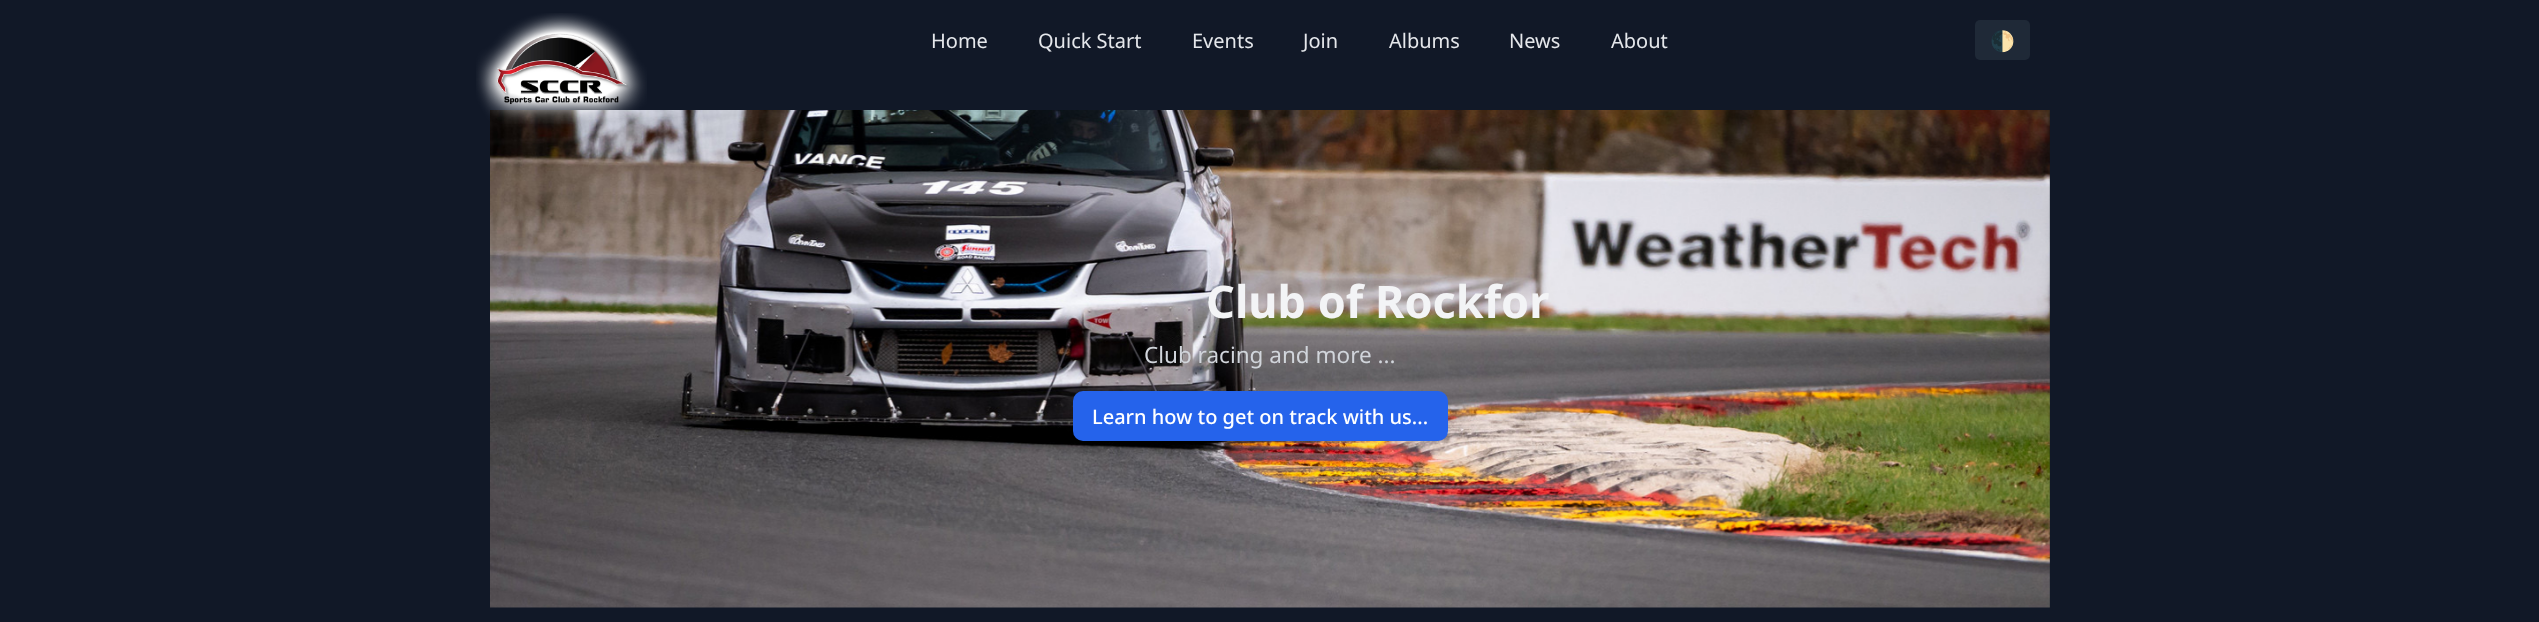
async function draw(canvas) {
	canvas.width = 2539;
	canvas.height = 622;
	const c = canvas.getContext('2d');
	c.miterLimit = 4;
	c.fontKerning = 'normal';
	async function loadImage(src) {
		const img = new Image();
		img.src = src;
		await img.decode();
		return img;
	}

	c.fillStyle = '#111827';
	c.fillRect(0, 0, 2539, 622);
	c.drawImage(await loadImage('img2.png'), 490, 110, 1560, 498);
	c.drawImage(await loadImage('img1.png'), 476, 13, 171, 111);
	c.font = '20px Noto Sans';
	c.fillStyle = '#e5e7eb';
	for (const [text, x, y] of [
		['Home', 931, 48],
		['Quick Start', 1038, 48],
		['Events', 1192, 48],
		['Join', 1303, 48],
		['Albums', 1389, 48],
		['News', 1509, 48],
		['About', 1611, 48],
	]) {
		c.fillText(text, x, y);
	}
	c.fillStyle = '#1f2937';
	c.beginPath();
	c.roundRect(1975, 20, 55, 40, 5);
	c.fill();
	c.font = '20px Noto Color Emoji';
	c.fillStyle = '#e5e7eb';
	c.fillText('🌓', 1990, 48);
	c.font = 'bold 45px Noto Sans';
	c.fillStyle = '#f3f4f6';
	c.fillText('Club of Rockfor', 1206, 318);
	c.font = '22.5px Noto Sans';
	c.fillStyle = '#d1d5db';
	c.fillText('Club racing and more ...', 1144, 363);
	c.fillStyle = '#2563eb';
	c.beginPath();
	c.roundRect(1073, 391, 375, 50, 10);
	c.fill();
	c.font = '500 20px Noto Sans';
	c.fillStyle = '#fff';
	c.fillText('Learn how to get on track with us...', 1092, 424);
}

draw(document.querySelector('canvas'));
